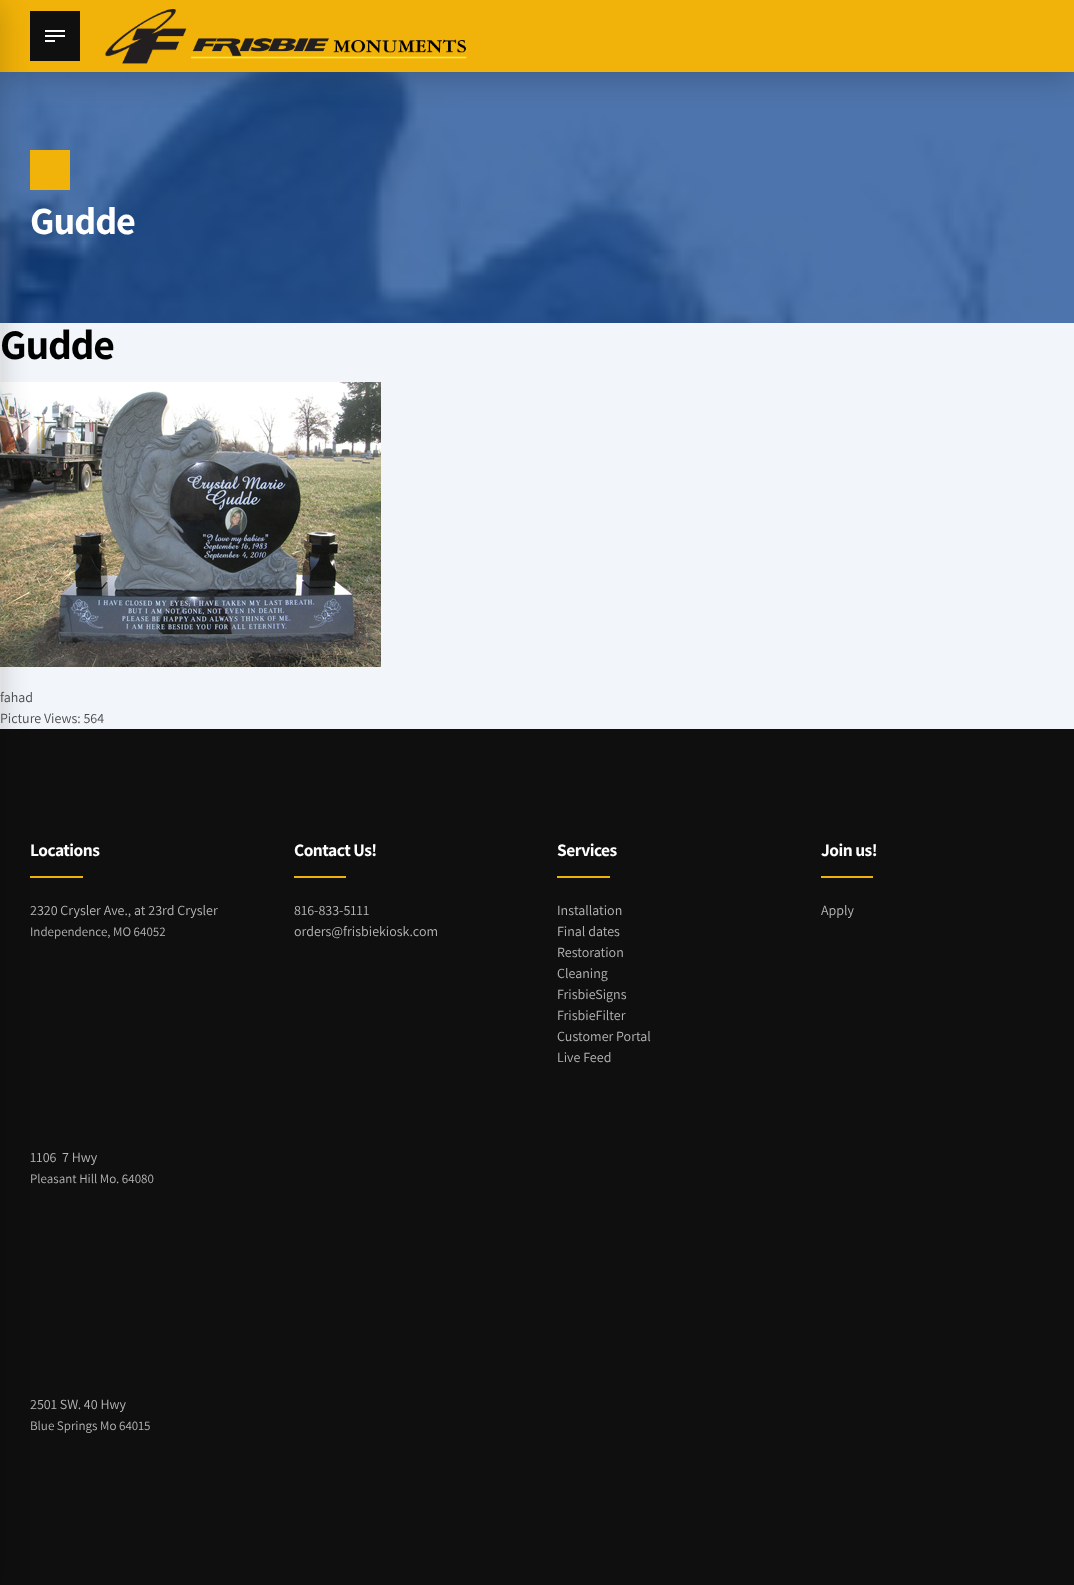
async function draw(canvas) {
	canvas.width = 1074;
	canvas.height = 1585;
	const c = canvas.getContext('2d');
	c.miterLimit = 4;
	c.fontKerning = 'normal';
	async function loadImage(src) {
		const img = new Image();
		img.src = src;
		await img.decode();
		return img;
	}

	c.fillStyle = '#fff';
	c.fillRect(0, 0, 1074, 1585);
	c.drawImage(await loadImage('img1.png'), 0, 323, 1074, 406);
	c.drawImage(await loadImage('img3.png'), 0, 72, 1074, 251);
	c.fillStyle = '#00000033';
	c.filter = 'blur(15px)';
	c.beginPath();
	c.rect(0, 5, 1074, 72);
	c.fill();
	c.filter = 'none';
	for (const [x, y, w, h, color] of [
		[0, 0, 1074, 72, '#f1b209'],
		[30, 11, 50, 50, '#0f0f0f'],
		[45, 30, 20, 2, '#fff'],
		[45, 35, 20, 2, '#fff'],
		[45, 40, 10, 2, '#fff'],
	]) {
		c.fillStyle = color;
		c.fillRect(x, y, w, h);
	}
	c.drawImage(await loadImage('img2.png'), 105, 9, 362, 55);
	c.fillStyle = '#f1b209';
	c.fillRect(30, 150, 40, 40);
	c.drawImage(await loadImage('img4.png'), 0, 382, 381, 285);
	c.fillStyle = '#0f0f0f';
	c.fillRect(0, 729, 1074, 856);
	c.fillStyle = '#f1b209';
	c.fillRect(30, 876, 53, 2);
	c.fillStyle = '#00000033';
	c.filter = 'blur(15px)';
	c.beginPath();
	c.rect(-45, 5, 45, 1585);
	c.fill();
	c.filter = 'none';
	c.letterSpacing = '-1px';
	c.font = 'bold 38.5px Assistant';
	c.fillStyle = '#fff';
	c.fillText('Gudde', 30, 234);
	c.letterSpacing = '-1.25px';
	c.font = 'bold 42px Assistant';
	c.fillStyle = '#000';
	c.fillText('Gudde', 0, 359);
	c.letterSpacing = '0px';
	c.font = '14px Assistant';
	c.fillStyle = '#494a4b';
	c.fillText('fahad', 0, 702);
	c.fillText('Picture Views: 564', 0, 723);
	c.letterSpacing = '-0.5px';
	c.font = 'bold 17.5px Assistant';
	c.fillStyle = '#fff';
	c.fillText('Locations', 30, 856);
	c.letterSpacing = '0px';
	c.font = '14px Assistant';
	c.fillStyle = '#b7b7b7';
	c.fillText('2320 Crysler Ave., at 23rd Crysler', 30, 915);
	c.font = '13px Assistant';
	c.fillText('Independence, MO 64052', 30, 936);
	c.font = '14px Assistant';
	c.fillText('1106  7 Hwy', 30, 1162);
	c.font = '13px Assistant';
	c.fillText('Pleasant Hill Mo. 64080', 30, 1183);
	c.font = '14px Assistant';
	c.fillText('2501 SW. 40 Hwy', 30, 1409);
	c.font = '13px Assistant';
	c.fillText('Blue Springs Mo 64015', 30, 1430);
	c.letterSpacing = '-0.5px';
	c.font = 'bold 17.5px Assistant';
	c.fillStyle = '#fff';
	c.fillText('Contact Us!', 294, 856);
	c.fillStyle = '#f1b209';
	c.fillRect(294, 876, 52, 2);
	c.letterSpacing = '0px';
	c.font = '14px Assistant';
	c.fillStyle = '#b7b7b7';
	c.fillText('816-833-5111', 294, 915);
	c.fillText('orders@frisbiekiosk.com', 294, 936);
	c.letterSpacing = '-0.5px';
	c.font = 'bold 17.5px Assistant';
	c.fillStyle = '#fff';
	c.fillText('Services', 557, 856);
	c.fillStyle = '#f1b209';
	c.fillRect(557, 876, 53, 2);
	c.letterSpacing = '0px';
	c.font = '14px Assistant';
	c.fillStyle = '#b7b7b7';
	for (const [text, x, y] of [
		['Installation', 557, 915],
		['Final dates', 557, 936],
		['Restoration', 557, 957],
		['Cleaning', 557, 978],
		['FrisbieSigns', 557, 999],
		['FrisbieFilter', 557, 1020],
		['Customer Portal', 557, 1041],
		['Live Feed', 557, 1062],
	]) {
		c.fillText(text, x, y);
	}
	c.letterSpacing = '-0.5px';
	c.font = 'bold 17.5px Assistant';
	c.fillStyle = '#fff';
	c.fillText('Join us!', 821, 856);
	c.fillStyle = '#f1b209';
	c.fillRect(821, 876, 52, 2);
	c.letterSpacing = '0px';
	c.font = '14px Assistant';
	c.fillStyle = '#b7b7b7';
	c.fillText('Apply', 821, 915);
}

draw(document.querySelector('canvas'));
